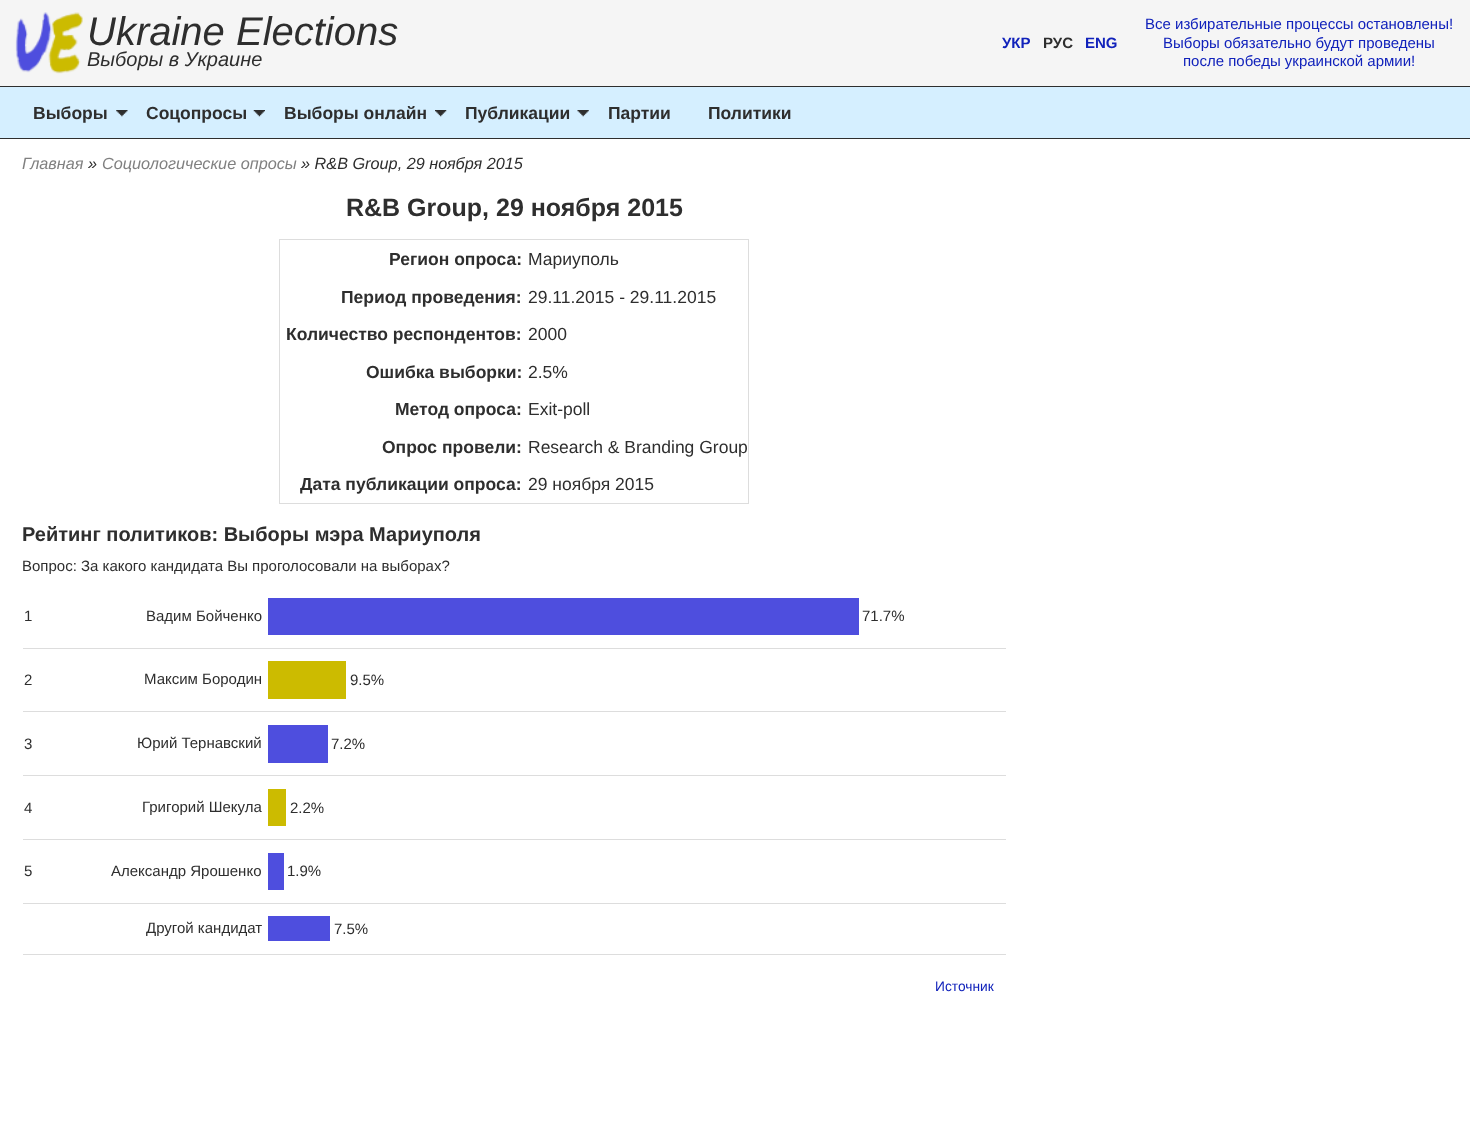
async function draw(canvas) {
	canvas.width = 1470;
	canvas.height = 1146;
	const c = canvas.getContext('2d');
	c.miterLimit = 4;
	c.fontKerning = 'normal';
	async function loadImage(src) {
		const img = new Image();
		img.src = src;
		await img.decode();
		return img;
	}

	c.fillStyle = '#fff';
	c.fillRect(0, 0, 1470, 1146);
	c.fillStyle = '#f5f5f5';
	c.fillRect(0, 0, 1470, 86);
	c.drawImage(await loadImage('img1.png'), 15, 12, 68, 62);
	c.font = 'italic 40px Liberation Sans';
	c.fillStyle = '#2e2e2e';
	c.fillText('Ukraine Elections', 87, 45);
	c.font = 'italic 20px Liberation Sans';
	c.fillText('Выборы в Украине', 87, 66);
	c.font = 'bold 15px Liberation Sans';
	c.fillStyle = '#12b';
	c.fillText('УКР', 1002, 48);
	c.fillStyle = '#2e2e2e';
	c.fillText('РУС', 1043, 48);
	c.fillStyle = '#12b';
	c.fillText('ENG', 1085, 48);
	c.font = '15px Liberation Sans';
	for (const [text, x, y] of [
		['Все избирательные процессы остановлены!', 1145, 29],
		['Выборы обязательно будут проведены', 1163, 48],
		['после победы украинской армии!', 1183, 66],
	]) {
		c.fillText(text, x, y);
	}
	for (const [x, y, w, h, color] of [
		[0, 87, 1470, 51, '#d5efff'],
		[0, 86, 1470, 1, '#2e2e2e'],
		[0, 138, 1470, 1, '#2e2e2e'],
	]) {
		c.fillStyle = color;
		c.fillRect(x, y, w, h);
	}
	c.drawImage(await loadImage('img2.png'), 116, 110, 12, 7);
	c.font = 'bold 17.5px Liberation Sans';
	c.fillText('Выборы', 33, 119);
	c.drawImage(await loadImage('img3.png'), 253, 110, 12, 7);
	c.fillText('Соцопросы', 146, 119);
	c.drawImage(await loadImage('img4.png'), 435, 110, 12, 7);
	c.fillText('Выборы онлайн', 284, 119);
	c.drawImage(await loadImage('img5.png'), 577, 110, 12, 7);
	for (const [text, x, y] of [
		['Публикации', 465, 119],
		['Партии', 608, 119],
		['Политики', 708, 119],
	]) {
		c.fillText(text, x, y);
	}
	c.font = 'italic 16.25px Liberation Sans';
	c.fillStyle = '#808080';
	c.fillText('Главная', 22, 169);
	c.fillStyle = '#2e2e2e';
	c.fillText('»', 88, 169);
	c.fillStyle = '#808080';
	c.fillText('Cоциологические опросы', 102, 169);
	c.fillStyle = '#2e2e2e';
	c.fillText('» R&B Group, 29 ноября 2015', 301, 169);
	c.font = 'bold 25px Liberation Sans';
	c.fillText('R&B Group, 29 ноября 2015', 346, 216);
	c.strokeStyle = '#ddd';
	c.strokeRect(279.5, 239.5, 469, 264);
	c.font = 'bold 17.5px Liberation Sans';
	c.fillText('Регион опроса:', 389, 265);
	c.font = '17.5px Liberation Sans';
	c.fillText('Мариуполь', 528, 265);
	c.font = 'bold 17.5px Liberation Sans';
	c.fillText('Период проведения:', 341, 303);
	c.font = '17.5px Liberation Sans';
	c.fillText('29.11.2015 - 29.11.2015', 528, 303);
	c.font = 'bold 17.5px Liberation Sans';
	c.fillText('Количество респондентов:', 286, 340);
	c.font = '17.5px Liberation Sans';
	c.fillText('2000', 528, 340);
	c.font = 'bold 17.5px Liberation Sans';
	c.fillText('Ошибка выборки:', 366, 378);
	c.font = '17.5px Liberation Sans';
	c.fillText('2.5%', 528, 378);
	c.font = 'bold 17.5px Liberation Sans';
	c.fillText('Метод опроса:', 395, 415);
	c.font = '17.5px Liberation Sans';
	c.fillText('Exit-poll', 528, 415);
	c.font = 'bold 17.5px Liberation Sans';
	c.fillText('Опрос провели:', 382, 453);
	c.font = '17.5px Liberation Sans';
	c.fillText('Research & Branding Group', 528, 453);
	c.font = 'bold 17.5px Liberation Sans';
	c.fillText('Дата публикации опроса:', 300, 490);
	c.font = '17.5px Liberation Sans';
	c.fillText('29 ноября 2015', 528, 490);
	c.font = 'bold 20px Liberation Sans';
	c.fillText('Рейтинг политиков: Выборы мэра Мариуполя', 22, 541);
	c.font = '15px Liberation Sans';
	c.fillText('Вопрос: За какого кандидата Вы проголосовали на выборах?', 22, 571);
	c.fillStyle = '#ddd';
	c.fillRect(23, 648, 983, 1);
	c.fillStyle = '#2e2e2e';
	c.fillText('1', 24, 621);
	c.fillText('Вадим Бойченко', 146, 621);
	c.fillStyle = '#4e4ede';
	c.fillRect(268, 598, 591, 37);
	c.fillStyle = '#2e2e2e';
	c.fillText('71.7%', 862, 621);
	c.fillStyle = '#ddd';
	c.fillRect(23, 711, 983, 1);
	c.fillStyle = '#2e2e2e';
	c.fillText('2', 24, 685);
	c.fillText('Максим Бородин', 144, 684);
	c.fillStyle = '#cb0';
	c.fillRect(268, 661, 78, 38);
	c.fillStyle = '#2e2e2e';
	c.fillText('9.5%', 350, 685);
	c.fillStyle = '#ddd';
	c.fillRect(23, 775, 983, 1);
	c.fillStyle = '#2e2e2e';
	c.fillText('3', 24, 749);
	c.fillText('Юрий Тернавский', 137, 748);
	c.fillStyle = '#4e4ede';
	c.fillRect(268, 725, 60, 38);
	c.fillStyle = '#2e2e2e';
	c.fillText('7.2%', 331, 749);
	c.fillStyle = '#ddd';
	c.fillRect(23, 839, 983, 1);
	c.fillStyle = '#2e2e2e';
	c.fillText('4', 24, 813);
	c.fillText('Григорий Шекула', 142, 812);
	c.fillStyle = '#cb0';
	c.fillRect(268, 789, 18, 37);
	c.fillStyle = '#2e2e2e';
	c.fillText('2.2%', 290, 813);
	c.fillStyle = '#ddd';
	c.fillRect(23, 903, 983, 1);
	c.fillStyle = '#2e2e2e';
	c.fillText('5', 24, 876);
	c.fillText('Александр Ярошенко', 111, 876);
	c.fillStyle = '#4e4ede';
	c.fillRect(268, 853, 16, 37);
	c.fillStyle = '#2e2e2e';
	c.fillText('1.9%', 287, 876);
	c.fillText('Другой кандидат', 146, 933);
	c.fillStyle = '#4e4ede';
	c.fillRect(268, 916, 62, 25);
	c.fillStyle = '#2e2e2e';
	c.fillText('7.5%', 334, 934);
	c.fillStyle = '#ddd';
	c.fillRect(23, 954, 983, 1);
	c.font = '13.75px Liberation Sans';
	c.fillStyle = '#12b';
	c.fillText('Источник', 935, 991);
}

draw(document.querySelector('canvas'));
